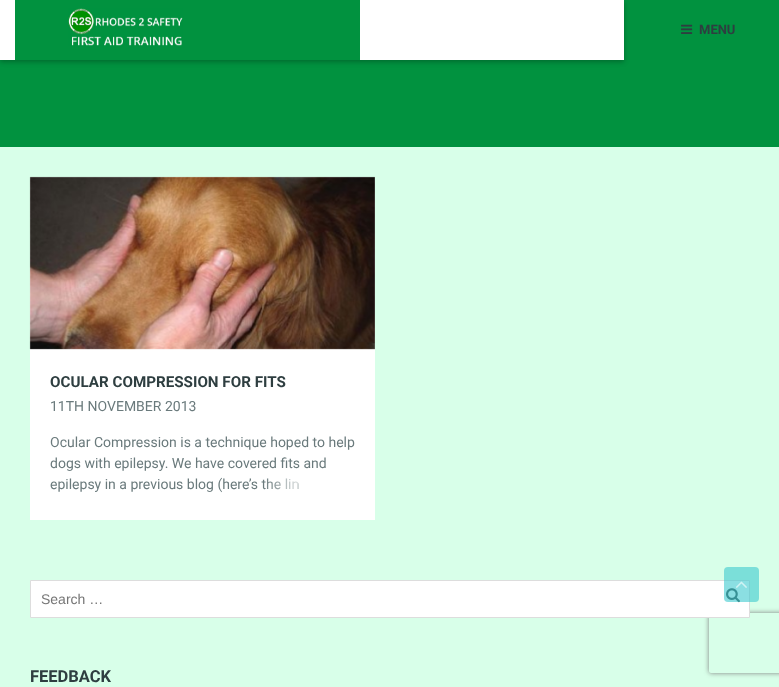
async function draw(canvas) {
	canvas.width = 779;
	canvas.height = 687;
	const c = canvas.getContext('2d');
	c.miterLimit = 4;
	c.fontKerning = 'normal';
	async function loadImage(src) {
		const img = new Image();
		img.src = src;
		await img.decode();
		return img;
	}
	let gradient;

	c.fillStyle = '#d8ffe9';
	c.fillRect(0, 0, 779, 687);
	c.fillStyle = '#01923f';
	c.fillRect(0, 0, 779, 147);
	c.fillStyle = '#00000042';
	c.filter = 'blur(2.5px)';
	c.beginPath();
	c.rect(0, 2, 624, 60);
	c.fill();
	c.filter = 'none';
	c.fillStyle = '#fff';
	c.fillRect(0, 0, 624, 60);
	c.fillStyle = '#01923f';
	c.fillRect(15, 0, 345, 60);
	c.drawImage(await loadImage('img1.png'), 68, 8, 115, 38);
	c.drawImage(await loadImage('img2.png'), 681, 24, 12, 10);
	c.font = 'bold 13px Roboto';
	c.fillStyle = '#2e3e40';
	c.fillText('MENU', 699, 34);
	c.fillStyle = '#fff';
	c.fillRect(30, 177, 345, 343);
	c.drawImage(await loadImage('img3.png'), 29, 176, 346, 174);
	c.font = 'bold 15.2px Roboto';
	c.fillStyle = '#2e3e40';
	c.fillText('OCULAR COMPRESSION FOR FITS', 50, 387);
	c.font = '14px Roboto';
	c.fillStyle = '#6a7a7c';
	for (const [text, x, y] of [
		['11TH NOVEMBER 2013', 50, 411],
		['Ocular Compression is a technique hoped to help', 50, 447],
		['dogs with epilepsy. We have covered fits and', 50, 468],
		['epilepsy in a previous blog (here’s the lin', 50, 489],
	]) {
		c.fillText(text, x, y);
	}
	gradient = c.createLinearGradient(263, 484, 355, 484);
	gradient.addColorStop(0, '#ffffff00');
	gradient.addColorStop(0.5, '#fff');
	c.fillStyle = gradient;
	c.fillRect(264, 478, 34, 12);
	c.save();
	c.beginPath();
	c.moveTo(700, 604);
	c.lineTo(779, 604);
	c.lineTo(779, 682);
	c.lineTo(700, 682);
	c.closePath();
	c.moveTo(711, 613);
	c.lineTo(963, 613);
	c.bezierCurveTo(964, 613, 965, 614, 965, 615);
	c.lineTo(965, 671);
	c.bezierCurveTo(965, 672, 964, 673, 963, 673);
	c.lineTo(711, 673);
	c.bezierCurveTo(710, 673, 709, 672, 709, 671);
	c.lineTo(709, 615);
	c.bezierCurveTo(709, 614, 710, 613, 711, 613);
	c.closePath();
	c.clip('evenodd');
	c.fillStyle = '#808080';
	c.filter = 'blur(2.5px)';
	c.beginPath();
	c.roundRect(709, 613, 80, 60, 2);
	c.fill();
	c.filter = 'none';
	c.restore();
	c.fillStyle = '#fff';
	c.beginPath();
	c.rect(30.5, 580.5, 719, 37);
	c.fill();
	c.strokeStyle = '#ddd';
	c.stroke();
	c.font = '14px Liberation Sans';
	c.fillStyle = '#757575';
	c.fillText('Search …', 41, 604);
	c.drawImage(await loadImage('img4.png'), 726, 588, 14, 15);
	c.font = 'bold 16.5px Roboto';
	c.fillStyle = '#2e3e40';
	c.fillText('FEEDBACK', 30, 682);
	c.fillStyle = '#3ec9ce99';
	c.beginPath();
	c.roundRect(724, 567, 35, 35, 4);
	c.fill();
	c.drawImage(await loadImage('img5.png'), 736, 581, 11, 7);
}

draw(document.querySelector('canvas'));
